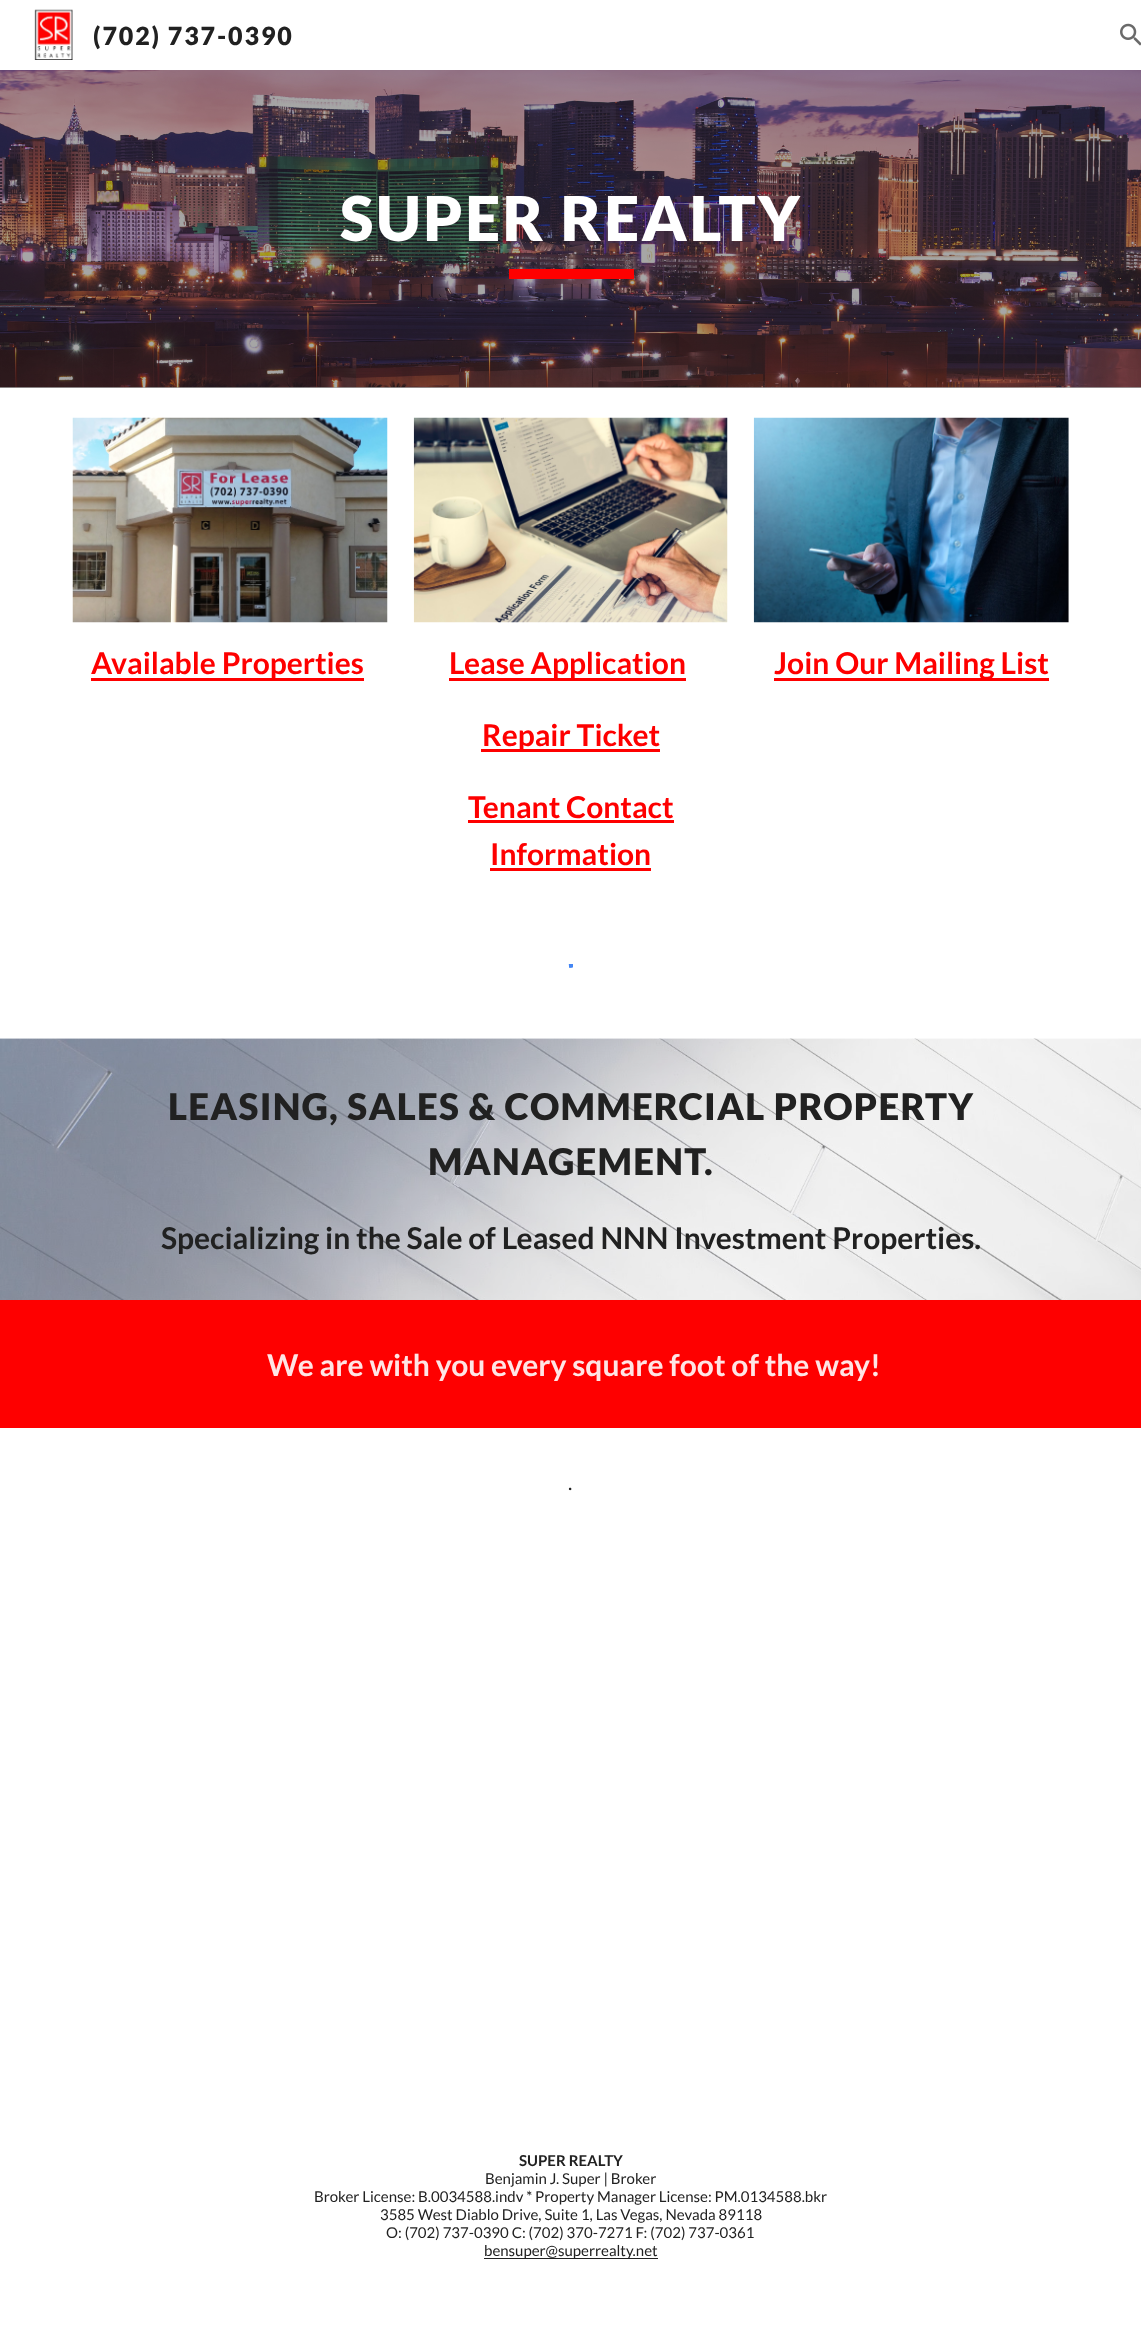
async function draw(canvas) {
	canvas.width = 1141;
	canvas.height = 2344;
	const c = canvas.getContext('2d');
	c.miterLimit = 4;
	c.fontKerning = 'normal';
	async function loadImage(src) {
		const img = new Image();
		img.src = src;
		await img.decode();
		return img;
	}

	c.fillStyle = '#fff';
	c.fillRect(0, 0, 1141, 2344);
	c.fillStyle = '#a6a6a6';
	c.fillRect(0, 387, 1141, 1);
	c.drawImage(await loadImage('img1.png'), 34, 9, 39, 51);
	c.letterSpacing = '1.9px';
	c.font = '900 25px Lato';
	c.fillStyle = '#212121';
	c.fillText('(702) 737-0390', 93, 45);
	c.drawImage(await loadImage('img2.png'), 1120, 23, 21, 23);
	c.drawImage(await loadImage('img3.png'), 0, 70, 1141, 318);
	c.letterSpacing = '2.5px';
	c.font = '900 61.75px Lato';
	c.fillStyle = '#fff';
	c.fillText('SUPER REALTY', 340, 241);
	c.fillStyle = '#fe0000';
	c.fillRect(509, 269, 125, 10);
	c.drawImage(await loadImage('img4.png'), 72, 417, 316, 206);
	c.fillRect(91, 678, 273, 3);
	c.letterSpacing = '0px';
	c.font = 'bold 30px Lato';
	c.fillText('Available Properties', 91, 674);
	c.drawImage(await loadImage('img5.png'), 413, 417, 315, 206);
	c.fillRect(449, 678, 237, 3);
	c.fillText('Lease Application', 449, 674);
	c.fillRect(481, 749, 179, 3);
	c.fillText('Repair Ticket', 482, 746);
	c.fillText('Tenant Contact', 468, 818);
	c.fillRect(468, 820, 206, 3);
	c.fillText('Information', 490, 865);
	c.fillRect(490, 868, 161, 3);
	c.drawImage(await loadImage('img6.png'), 753, 417, 316, 206);
	c.fillRect(774, 678, 275, 3);
	c.fillText('Join Our Mailing List', 774, 674);
	c.save();
	c.beginPath();
	c.rect(553, 964, 17, 35);
	c.clip();
	c.beginPath();
	c.moveTo(569, 966);
	c.bezierCurveTo(572.5, 965.5, 575.5, 966.5, 578, 968);
	c.bezierCurveTo(591.5, 975, 587, 995.5, 572, 997);
	c.strokeStyle = '#4486f4';
	c.lineWidth = 3.7;
	c.stroke();
	c.restore();
	c.save();
	c.beginPath();
	c.rect(569, 964, 4, 35);
	c.clip();
	c.beginPath();
	c.moveTo(560, 992.5);
	c.bezierCurveTo(556.5, 988.5, 555, 983, 556, 978);
	c.bezierCurveTo(556.5, 974, 559, 970.5, 562.5, 968.5);
	c.bezierCurveTo(577.5, 957.5, 593.5, 979.5, 581, 992.5);
	c.strokeStyle = '#4486f4';
	c.lineWidth = 3.8;
	c.stroke();
	c.restore();
	c.save();
	c.beginPath();
	c.rect(570, 964, 18, 35);
	c.clip();
	c.beginPath();
	c.moveTo(569, 997);
	c.bezierCurveTo(554, 995.5, 549.5, 975, 563, 968);
	c.bezierCurveTo(566, 966.5, 569, 965.5, 572, 966);
	c.strokeStyle = '#4486f4';
	c.lineWidth = 3.7;
	c.stroke();
	c.restore();
	c.drawImage(await loadImage('img7.png'), 0, 1038, 1141, 262);
	c.letterSpacing = '1.25px';
	c.font = '900 36.7px Lato';
	c.fillStyle = '#212121';
	c.fillText('LEASING, SALES & COMMERCIAL PROPERTY', 168, 1120);
	c.fillText('MANAGEMENT.', 428, 1175);
	c.letterSpacing = '0px';
	c.font = 'bold 30px Lato';
	c.fillText('Specializing in the Sale of Leased NNN Investment Properties.', 161, 1249);
	c.fillStyle = '#fe0000';
	c.fillRect(0, 1300, 1141, 128);
	c.fillStyle = '#ffe5e5';
	c.fillText('We are with you every square foot of the way!', 267, 1376);
	c.font = '20px Lato';
	c.fillStyle = '#212121';
	c.fillText('.', 568, 1490);
	c.font = 'bold 15px Lato';
	c.fillText('SUPER REALTY', 519, 2166);
	c.font = '15px Lato';
	for (const [text, x, y] of [
		['Benjamin J. Super | Broker', 485, 2184],
		['Broker License: B.0034588.indv * Property Manager License: PM.0134588.bkr', 314, 2202],
		['3585 West Diablo Drive, Suite 1, Las Vegas, Nevada 89118', 380, 2220],
		['O: (702) 737-0390 C: (702) 370-7271 F: (702) 737-0361', 386, 2238],
	]) {
		c.fillText(text, x, y);
	}
	c.fillRect(484, 2258, 174, 1);
	c.fillText('bensuper@superrealty.net', 484, 2256);
}

draw(document.querySelector('canvas'));
